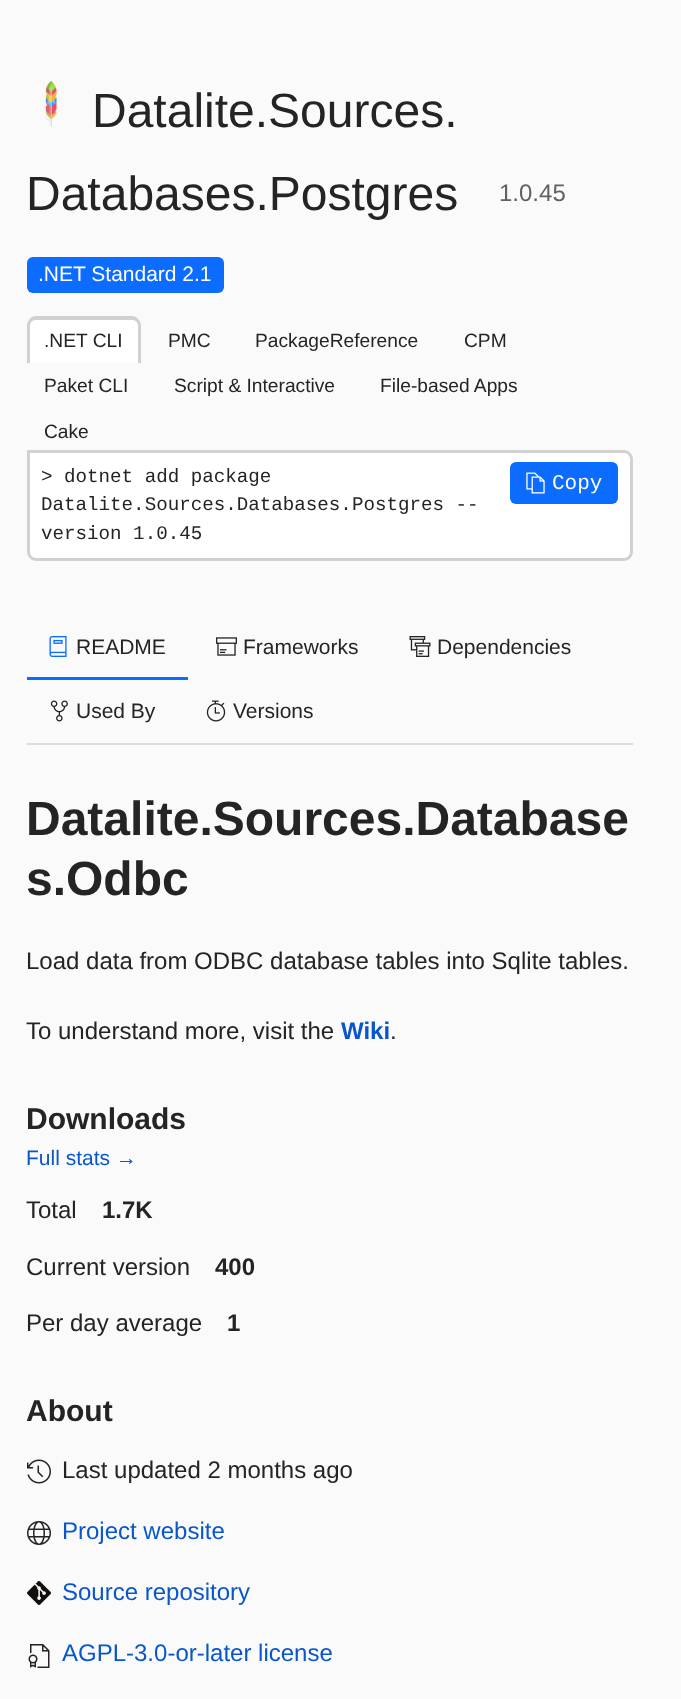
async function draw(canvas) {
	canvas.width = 681;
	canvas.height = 1699;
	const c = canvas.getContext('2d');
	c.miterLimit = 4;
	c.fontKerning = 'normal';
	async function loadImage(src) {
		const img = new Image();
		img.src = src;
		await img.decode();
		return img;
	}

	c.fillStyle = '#fafafa';
	c.fillRect(0, 0, 681, 1699);
	c.drawImage(await loadImage('img1.png'), 45, 81, 12, 46);
	c.font = '48px Liberation Sans';
	c.fillStyle = '#242424';
	c.fillText('Datalite.Sources.', 92, 127);
	c.fillText('Databases.Postgres', 26, 210);
	c.font = '24px Liberation Sans';
	c.fillStyle = '#616161';
	c.fillText('1.0.45', 499, 201);
	c.fillStyle = '#0b6cff';
	c.beginPath();
	c.roundRect(27, 257, 197, 36, 6);
	c.fill();
	c.font = '21px Liberation Sans';
	c.fillStyle = '#fff';
	c.fillText('.NET Standard 2.1', 38, 281);
	c.beginPath();
	c.roundRect(27, 317, 114, 46, [9, 9, 0, 0]);
	c.fill();
	c.fillStyle = '#d1d1d1';
	c.beginPath();
	c.moveTo(36, 316);
	c.lineTo(132, 316);
	c.bezierCurveTo(137, 316, 141, 321, 141, 326);
	c.lineTo(141, 363);
	c.lineTo(27, 363);
	c.lineTo(27, 326);
	c.bezierCurveTo(27, 321, 31, 316, 36, 316);
	c.closePath();
	c.moveTo(36, 320);
	c.lineTo(132, 320);
	c.bezierCurveTo(135, 320, 138, 322, 138, 326);
	c.lineTo(138, 363);
	c.lineTo(30, 363);
	c.lineTo(30, 326);
	c.bezierCurveTo(30, 322, 33, 320, 36, 320);
	c.closePath();
	c.fill('evenodd');
	c.font = '19.2px Liberation Sans';
	c.fillStyle = '#242424';
	for (const [text, x, y] of [
		['.NET CLI', 44, 347],
		['PMC', 168, 347],
		['PackageReference', 255, 347],
		['CPM', 464, 347],
		['Paket CLI', 44, 392],
		['Script & Interactive', 174, 392],
		['File-based Apps', 380, 392],
		['Cake', 44, 438],
	]) {
		c.fillText(text, x, y);
	}
	c.fillStyle = '#fff';
	c.beginPath();
	c.roundRect(28.5, 451.5, 603, 108, [0, 7.5, 7.5, 7.5]);
	c.fill();
	c.strokeStyle = '#d1d1d1';
	c.lineWidth = 3;
	c.stroke();
	c.font = '19.2px Liberation Mono';
	c.fillStyle = '#242424';
	for (const [text, x, y] of [
		['> dotnet add package', 41, 482],
		['Datalite.Sources.Databases.Postgres --', 41, 510],
		['version 1.0.45', 41, 539],
	]) {
		c.fillText(text, x, y);
	}
	c.fillStyle = '#0b6cff';
	c.beginPath();
	c.roundRect(510, 462, 108, 42, 6);
	c.fill();
	c.drawImage(await loadImage('img2.png'), 526, 472, 19, 22);
	c.font = '21px Liberation Mono';
	c.fillStyle = '#fff';
	c.fillText('Copy', 552, 489);
	c.fillStyle = '#ddd';
	c.fillRect(27, 743, 606, 2);
	c.fillStyle = '#0b6cff';
	c.fillRect(27, 677, 161, 3);
	c.drawImage(await loadImage('img3.png'), 49, 636, 18, 21);
	c.font = '21px Liberation Sans';
	c.fillStyle = '#242424';
	c.fillText('README', 76, 654);
	c.drawImage(await loadImage('img4.png'), 216, 637, 21, 19);
	c.fillText('Frameworks', 243, 654);
	c.drawImage(await loadImage('img5.png'), 409, 636, 22, 21);
	c.fillText('Dependencies', 437, 654);
	c.drawImage(await loadImage('img6.png'), 50, 700, 18, 22);
	c.fillText('Used By', 76, 718);
	c.drawImage(await loadImage('img7.png'), 206, 700, 20, 22);
	c.fillText('Versions', 233, 718);
	c.font = 'bold 48px Liberation Sans';
	c.fillText('Datalite.Sources.Database', 26, 835);
	c.fillText('s.Odbc', 26, 895);
	c.font = '24px Liberation Sans';
	c.fillText('Load data from ODBC database tables into Sqlite tables.', 26, 969);
	c.fillText('To understand more, visit the', 26, 1039);
	c.font = 'bold 24px Liberation Sans';
	c.fillStyle = '#0956cc';
	c.fillText('Wiki', 341, 1039);
	c.font = '24px Liberation Sans';
	c.fillStyle = '#242424';
	c.fillText('.', 390, 1039);
	c.font = 'bold 30px Liberation Sans';
	c.fillText('Downloads', 26, 1129);
	c.font = '21px Liberation Sans';
	c.fillStyle = '#0956cc';
	c.fillText('Full stats →', 26, 1165);
	c.font = '24px Liberation Sans';
	c.fillStyle = '#242424';
	c.fillText('Total', 26, 1218);
	c.font = 'bold 24px Liberation Sans';
	c.fillText('1.7K', 102, 1218);
	c.font = '24px Liberation Sans';
	c.fillText('Current version', 26, 1275);
	c.font = 'bold 24px Liberation Sans';
	c.fillText('400', 215, 1275);
	c.font = '24px Liberation Sans';
	c.fillText('Per day average', 26, 1331);
	c.font = 'bold 24px Liberation Sans';
	c.fillText('1', 227, 1331);
	c.font = 'bold 30px Liberation Sans';
	c.fillText('About', 26, 1421);
	c.drawImage(await loadImage('img8.png'), 27, 1459, 24, 25);
	c.font = '24px Liberation Sans';
	c.fillText('Last updated 2 months ago', 62, 1478);
	c.drawImage(await loadImage('img9.png'), 27, 1521, 24, 24);
	c.fillStyle = '#0956cc';
	c.fillText('Project website', 62, 1539);
	c.drawImage(await loadImage('img10.png'), 27, 1581, 24, 24);
	c.fillText('Source repository', 62, 1600);
	c.drawImage(await loadImage('img11.png'), 28, 1644, 22, 24);
	c.fillText('AGPL-3.0-or-later license', 62, 1661);
}

draw(document.querySelector('canvas'));
